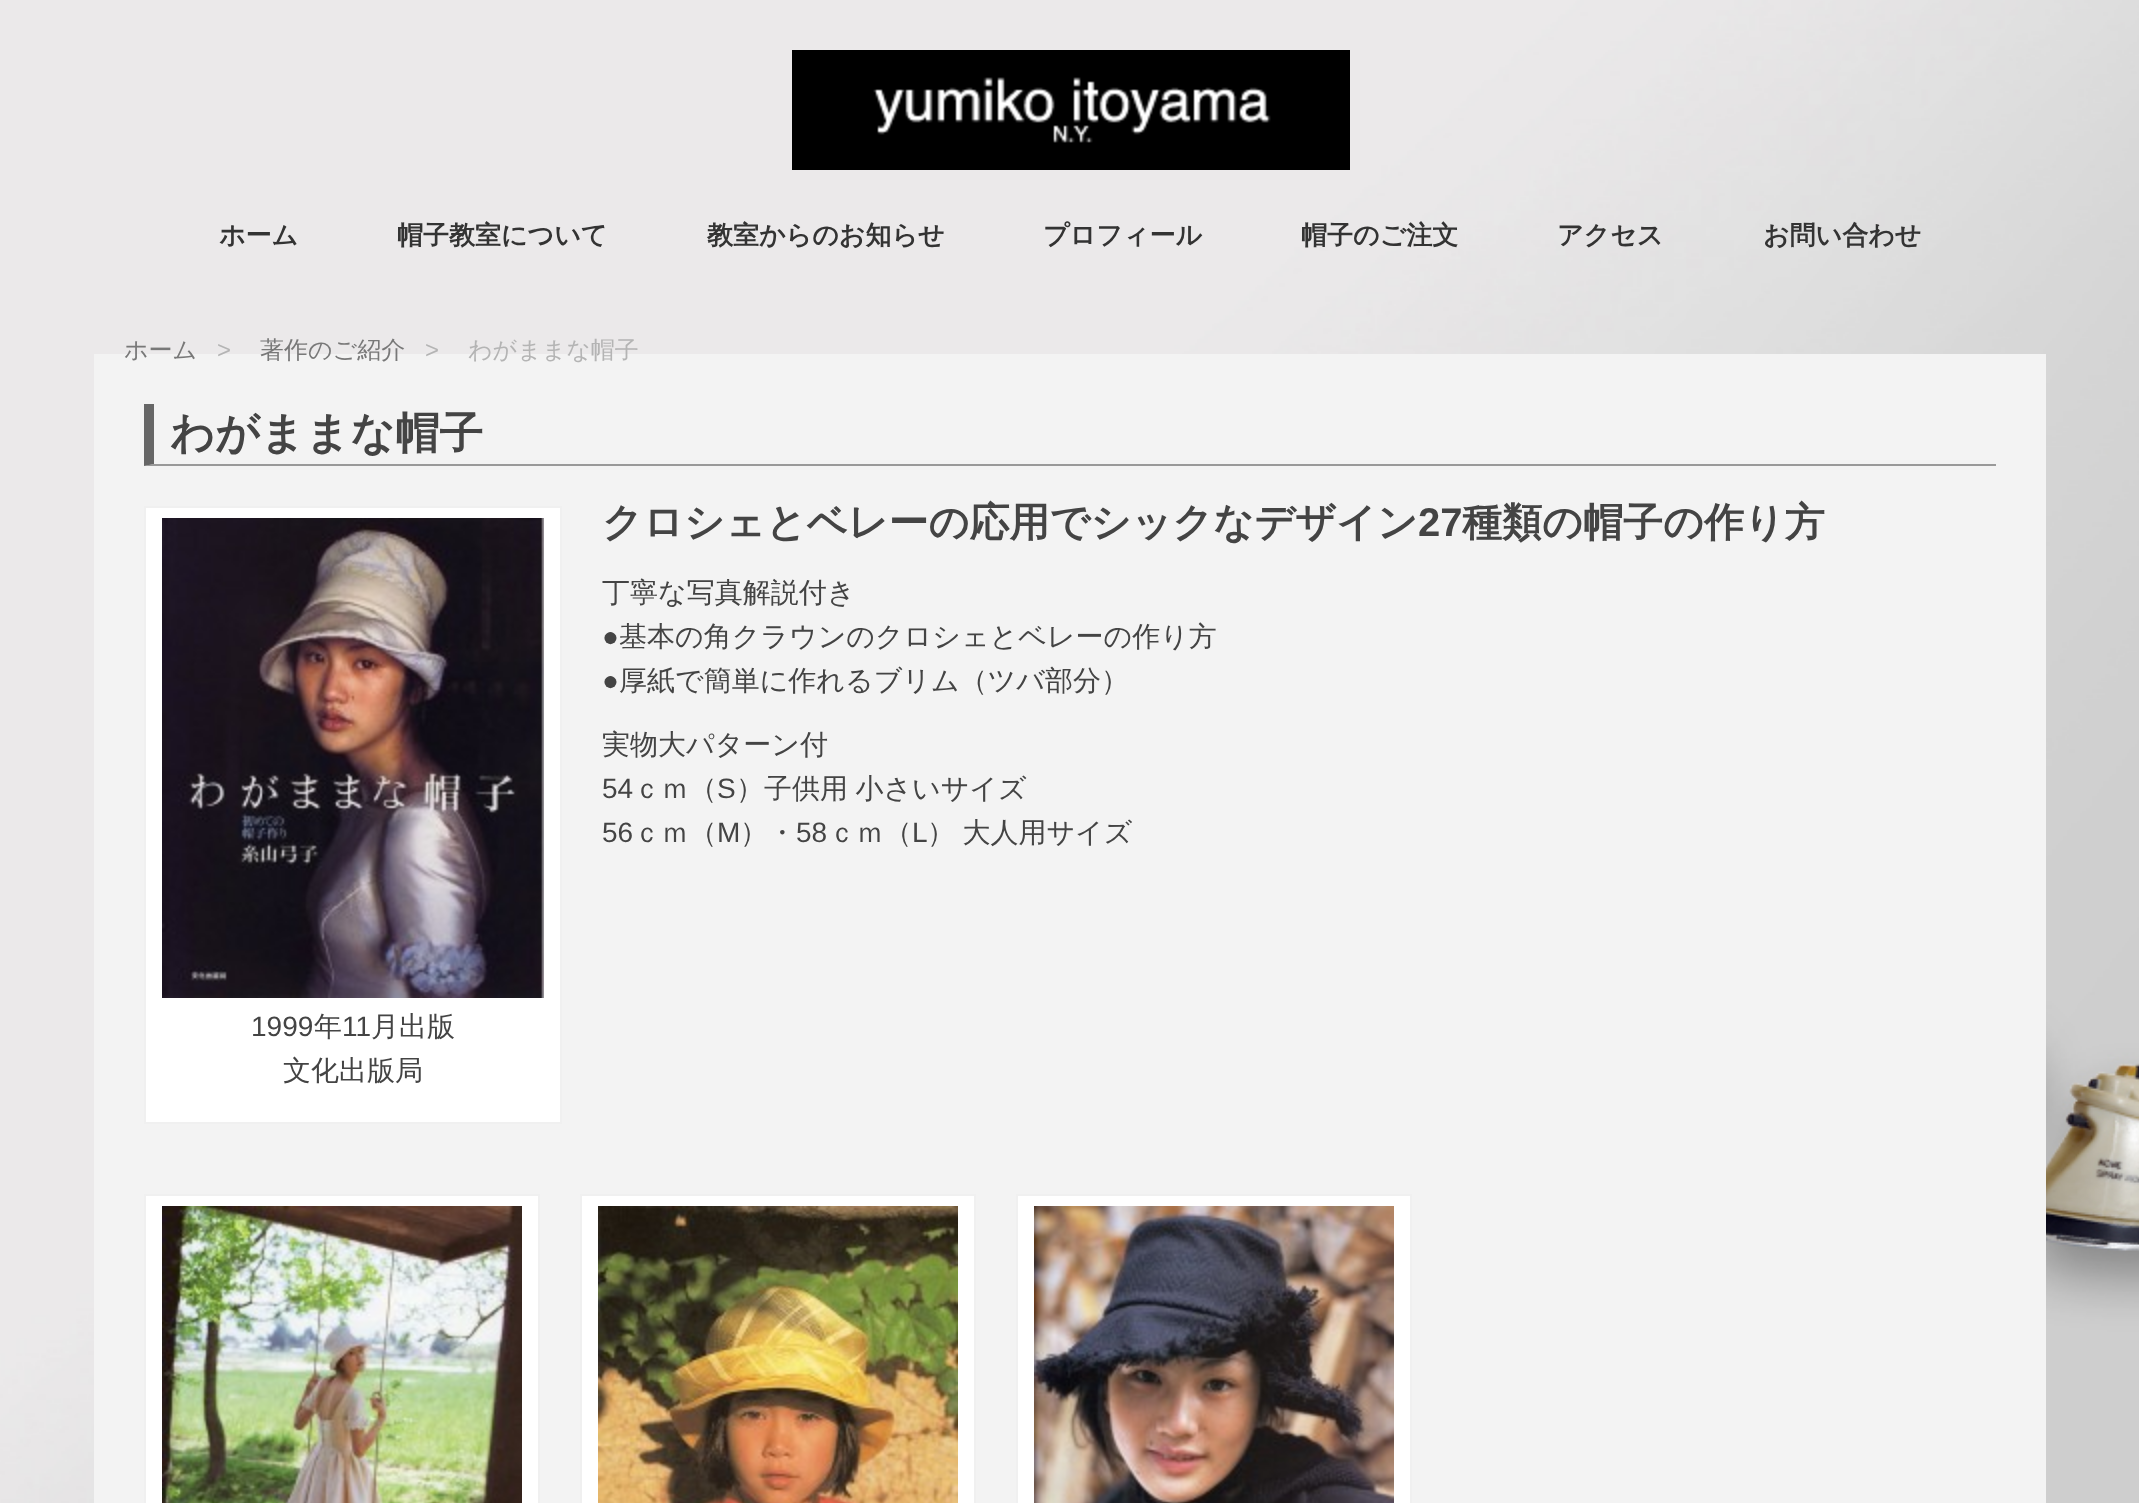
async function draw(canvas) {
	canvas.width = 2139;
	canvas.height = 1503;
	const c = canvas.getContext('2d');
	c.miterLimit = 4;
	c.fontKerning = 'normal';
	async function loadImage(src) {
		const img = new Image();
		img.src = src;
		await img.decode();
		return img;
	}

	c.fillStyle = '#fff';
	c.fillRect(0, 0, 2139, 1503);
	c.drawImage(await loadImage('img1.png'), 0, 0, 2139, 1503);
	c.drawImage(await loadImage('img2.png'), 792, 50, 558, 120);
	c.font = 'bold 26px WenQuanYi Zen Hei';
	c.fillStyle = '#333';
	for (const [text, x, y] of [
		['ホーム', 219, 244],
		['帽子教室について', 397, 244],
		['教室からのお知らせ', 707, 244],
		['プロフィール', 1043, 244],
		['帽子のご注文', 1301, 244],
		['アクセス', 1557, 244],
		['お問い合わせ', 1763, 244],
	]) {
		c.fillText(text, x, y);
	}
	c.fillStyle = '#f3f3f3';
	c.fillRect(94, 354, 1952, 1149);
	c.font = '500 24px WenQuanYi Zen Hei';
	c.fillStyle = '#787878';
	c.fillText('ホーム', 124, 358);
	c.font = '24px Liberation Sans';
	c.fillStyle = '#b4b4b4';
	c.fillText('>', 217, 358);
	c.font = '500 24px WenQuanYi Zen Hei';
	c.fillStyle = '#787878';
	c.fillText('著作のご紹介', 260, 358);
	c.font = '24px Liberation Sans';
	c.fillStyle = '#b4b4b4';
	c.fillText('>', 425, 358);
	c.font = '500 24px WenQuanYi Zen Hei';
	c.fillText('わがままな帽子', 468, 358);
	c.fillStyle = '#999';
	c.beginPath();
	c.moveTo(1996, 466);
	c.lineTo(144, 466);
	c.lineTo(154, 464);
	c.lineTo(1996, 464);
	c.closePath();
	c.fill();
	c.fillStyle = '#666';
	c.beginPath();
	c.moveTo(144, 466);
	c.lineTo(144, 404);
	c.lineTo(154, 404);
	c.lineTo(154, 464);
	c.closePath();
	c.fill();
	c.font = 'bold 44px WenQuanYi Zen Hei';
	c.fillStyle = '#444';
	c.fillText('わがままな帽子', 170, 448);
	c.font = 'bold 40px WenQuanYi Zen Hei';
	c.fillText('クロシェとベレーの応用でシックなデザイン', 602, 536);
	c.font = 'bold 40px Liberation Sans';
	c.fillText('27', 1418, 536);
	c.font = 'bold 40px WenQuanYi Zen Hei';
	c.fillText('種類の帽子の作り方', 1462, 536);
	c.font = '500 28px WenQuanYi Zen Hei';
	c.fillText('丁寧な写真解説付き', 602, 602);
	c.font = '28px Liberation Sans';
	c.fillText('●', 602, 646);
	c.font = '500 28px WenQuanYi Zen Hei';
	c.fillText('基本の角クラウンのクロシェとベレーの作り方', 619, 646);
	c.font = '28px Liberation Sans';
	c.fillText('●', 602, 690);
	c.font = '500 28px WenQuanYi Zen Hei';
	c.fillText('厚紙で簡単に作れるブリム（ツバ部分）', 619, 690);
	c.fillText('実物大パターン付', 602, 754);
	c.font = '28px Liberation Sans';
	c.fillText('54', 602, 798);
	c.font = '500 28px WenQuanYi Zen Hei';
	c.fillText('ｃｍ（', 633, 798);
	c.font = '28px Liberation Sans';
	c.fillText('S', 717, 798);
	c.wordSpacing = '-1px';
	c.font = '500 28px WenQuanYi Zen Hei';
	c.fillText('）子供用 小さいサイズ', 736, 798);
	c.wordSpacing = '0px';
	c.font = '28px Liberation Sans';
	c.fillText('56', 602, 842);
	c.font = '500 28px WenQuanYi Zen Hei';
	c.fillText('ｃｍ（', 633, 842);
	c.font = '28px Liberation Sans';
	c.fillText('M', 717, 842);
	c.font = '500 28px WenQuanYi Zen Hei';
	c.fillText('）・', 740, 842);
	c.font = '28px Liberation Sans';
	c.fillText('58', 796, 842);
	c.font = '500 28px WenQuanYi Zen Hei';
	c.fillText('ｃｍ（', 828, 842);
	c.font = '28px Liberation Sans';
	c.fillText('L', 912, 842);
	c.wordSpacing = '-1px';
	c.font = '500 28px WenQuanYi Zen Hei';
	c.fillText('） 大人用サイズ', 927, 842);
	c.fillStyle = '#fff';
	c.beginPath();
	c.rect(145, 507, 416, 616);
	c.fill();
	c.strokeStyle = '#f0f0f0';
	c.lineWidth = 2;
	c.stroke();
	c.drawImage(await loadImage('img3.png'), 162, 518, 382, 480);
	c.wordSpacing = '0px';
	c.font = '28px Liberation Sans';
	c.fillStyle = '#444';
	c.fillText('1999', 251, 1036);
	c.font = '500 28px WenQuanYi Zen Hei';
	c.fillText('年', 314, 1036);
	c.font = '28px Liberation Sans';
	c.fillText('11', 342, 1036);
	c.font = '500 28px WenQuanYi Zen Hei';
	c.fillText('月出版', 371, 1036);
	c.fillText('文化出版局', 283, 1080);
	c.fillStyle = '#fff';
	c.beginPath();
	c.rect(145, 1195, 394, 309);
	c.fill();
	c.stroke();
	c.drawImage(await loadImage('img4.png'), 162, 1206, 360, 297);
	c.beginPath();
	c.rect(581, 1195, 394, 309);
	c.fill();
	c.stroke();
	c.drawImage(await loadImage('img5.png'), 598, 1206, 360, 297);
	c.beginPath();
	c.rect(1017, 1195, 394, 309);
	c.fill();
	c.stroke();
	c.drawImage(await loadImage('img6.png'), 1034, 1206, 360, 297);
}

draw(document.querySelector('canvas'));
